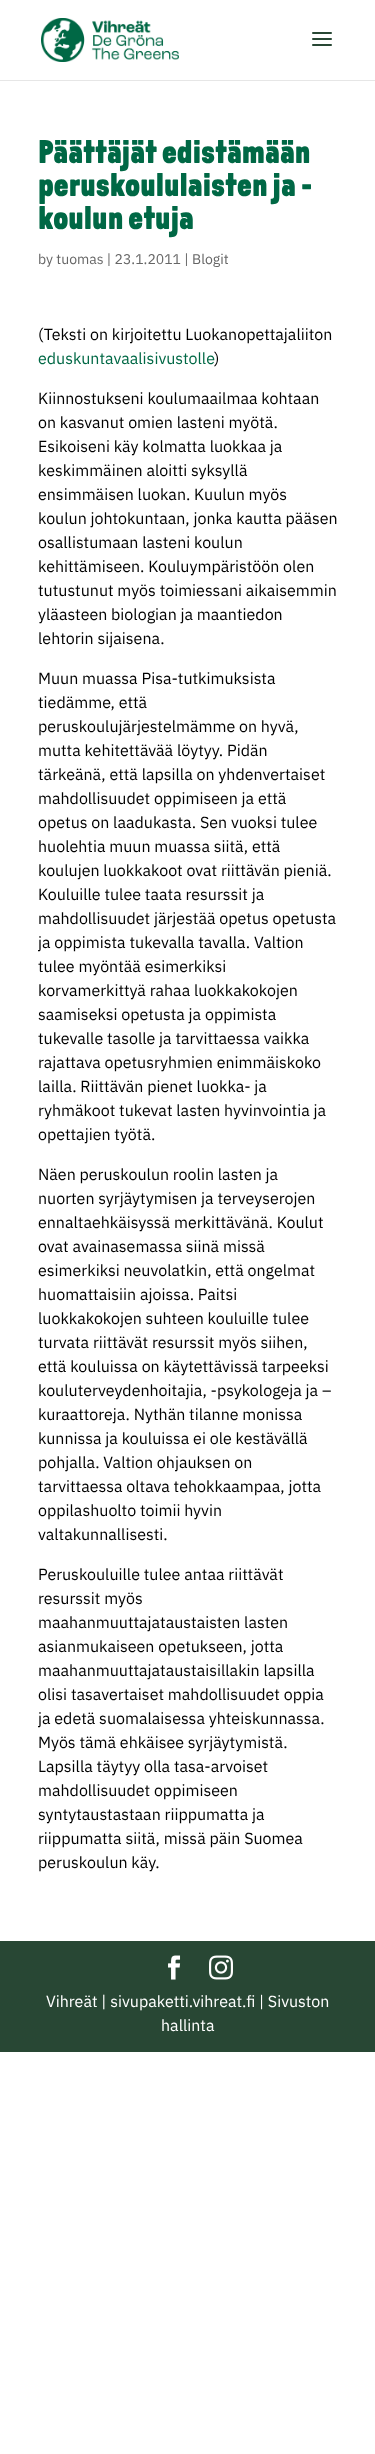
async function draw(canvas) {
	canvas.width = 375;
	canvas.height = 2454;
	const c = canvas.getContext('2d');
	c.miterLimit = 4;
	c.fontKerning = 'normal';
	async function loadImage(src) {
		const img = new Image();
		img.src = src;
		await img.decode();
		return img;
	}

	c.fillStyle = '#fff';
	c.fillRect(0, 0, 375, 2454);
	c.fillStyle = '#e6e6e6';
	c.fillRect(0, 80, 375, 1);
	c.drawImage(await loadImage('img1.png'), 41, 18, 138, 44);
	c.drawImage(await loadImage('img2.png'), 312, 32, 20, 14);
	c.font = '900 33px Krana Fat';
	c.fillStyle = '#006845';
	for (const [text, x, y] of [
		['Päättäjät edistämään', 38, 163],
		['peruskoululaisten ja -', 38, 196],
		['koulun etuja', 38, 229],
	]) {
		c.fillText(text, x, y);
	}
	c.font = '14px IBM Plex Sans';
	c.fillStyle = '#666';
	c.fillText('by tuomas | 23.1.2011 | Blogit', 38, 264);
	c.font = '16px IBM Plex Sans';
	c.fillStyle = '#000';
	c.fillText('(Teksti on kirjoitettu Luokanopettajaliiton', 38, 340);
	c.fillStyle = '#006845';
	c.fillText('eduskuntavaalisivustolle', 38, 364);
	c.fillStyle = '#000';
	for (const [text, x, y] of [
		[')', 214, 364],
		['Kiinnostukseni koulumaailmaa kohtaan', 38, 404],
		['on kasvanut omien lasteni myötä.', 38, 428],
		['Esikoiseni käy kolmatta luokkaa ja', 38, 452],
		['keskimmäinen aloitti syksyllä', 38, 476],
		['ensimmäisen luokan. Kuulun myös', 38, 500],
		['koulun johtokuntaan, jonka kautta pääsen', 38, 524],
		['osallistumaan lasteni koulun', 38, 548],
		['kehittämiseen. Kouluympäristöön olen', 38, 572],
		['tutustunut myös toimiessani aikaisemmin', 38, 596],
		['yläasteen biologian ja maantiedon', 38, 620],
		['lehtorin sijaisena.', 38, 644],
		['Muun muassa Pisa-tutkimuksista', 38, 684],
		['tiedämme, että', 38, 708],
		['peruskoulujärjestelmämme on hyvä,', 38, 732],
		['mutta kehitettävää löytyy. Pidän', 38, 756],
		['tärkeänä, että lapsilla on yhdenvertaiset', 38, 780],
		['mahdollisuudet oppimiseen ja että', 38, 804],
		['opetus on laadukasta. Sen vuoksi tulee', 38, 828],
		['huolehtia muun muassa siitä, että', 38, 852],
		['koulujen luokkakoot ovat riittävän pieniä.', 38, 876],
		['Kouluille tulee taata resurssit ja', 38, 900],
		['mahdollisuudet järjestää opetus opetusta', 38, 924],
		['ja oppimista tukevalla tavalla. Valtion', 38, 948],
		['tulee myöntää esimerkiksi', 38, 972],
		['korvamerkittyä rahaa luokkakokojen', 38, 996],
		['saamiseksi opetusta ja oppimista', 38, 1020],
		['tukevalle tasolle ja tarvittaessa vaikka', 38, 1044],
		['rajattava opetusryhmien enimmäiskoko', 38, 1068],
		['lailla. Riittävän pienet luokka- ja', 38, 1092],
		['ryhmäkoot tukevat lasten hyvinvointia ja', 38, 1116],
		['opettajien työtä.', 38, 1140],
		['Näen peruskoulun roolin lasten ja', 38, 1180],
		['nuorten syrjäytymisen ja terveyserojen', 38, 1204],
		['ennaltaehkäisyssä merkittävänä. Koulut', 38, 1228],
		['ovat avainasemassa siinä missä', 38, 1252],
		['esimerkiksi neuvolatkin, että ongelmat', 38, 1276],
		['huomattaisiin ajoissa. Paitsi', 38, 1300],
		['luokkakokojen suhteen kouluille tulee', 38, 1324],
		['turvata riittävät resurssit myös siihen,', 38, 1348],
		['että kouluissa on käytettävissä tarpeeksi', 38, 1372],
		['kouluterveydenhoitajia, -psykologeja ja –', 38, 1396],
		['kuraattoreja. Nythän tilanne monissa', 38, 1420],
		['kunnissa ja kouluissa ei ole kestävällä', 38, 1444],
		['pohjalla. Valtion ohjauksen on', 38, 1468],
		['tarvittaessa oltava tehokkaampaa, jotta', 38, 1492],
		['oppilashuolto toimii hyvin', 38, 1516],
		['valtakunnallisesti.', 38, 1540],
		['Peruskouluille tulee antaa riittävät', 38, 1580],
		['resurssit myös', 38, 1604],
		['maahanmuuttajataustaisten lasten', 38, 1628],
		['asianmukaiseen opetukseen, jotta', 38, 1652],
		['maahanmuuttajataustaisillakin lapsilla', 38, 1676],
		['olisi tasavertaiset mahdollisuudet oppia', 38, 1700],
		['ja edetä suomalaisessa yhteiskunnassa.', 38, 1724],
		['Myös tämä ehkäisee syrjäytymistä.', 38, 1748],
		['Lapsilla täytyy olla tasa-arvoiset', 38, 1772],
		['mahdollisuudet oppimiseen', 38, 1796],
		['syntytaustastaan riippumatta ja', 38, 1820],
		['riippumatta siitä, missä päin Suomea', 38, 1844],
		['peruskoulun käy.', 38, 1868],
	]) {
		c.fillText(text, x, y);
	}
	c.fillStyle = '#284734';
	c.fillRect(0, 1941, 375, 111);
	c.drawImage(await loadImage('img3.png'), 168, 1955, 13, 25);
	c.drawImage(await loadImage('img4.png'), 209, 1955, 24, 25);
	c.fillStyle = '#fff';
	c.fillText('Vihreät | sivupaketti.vihreat.fi | Sivuston', 46, 2007);
	c.fillText('hallinta', 161, 2031);
}

draw(document.querySelector('canvas'));
